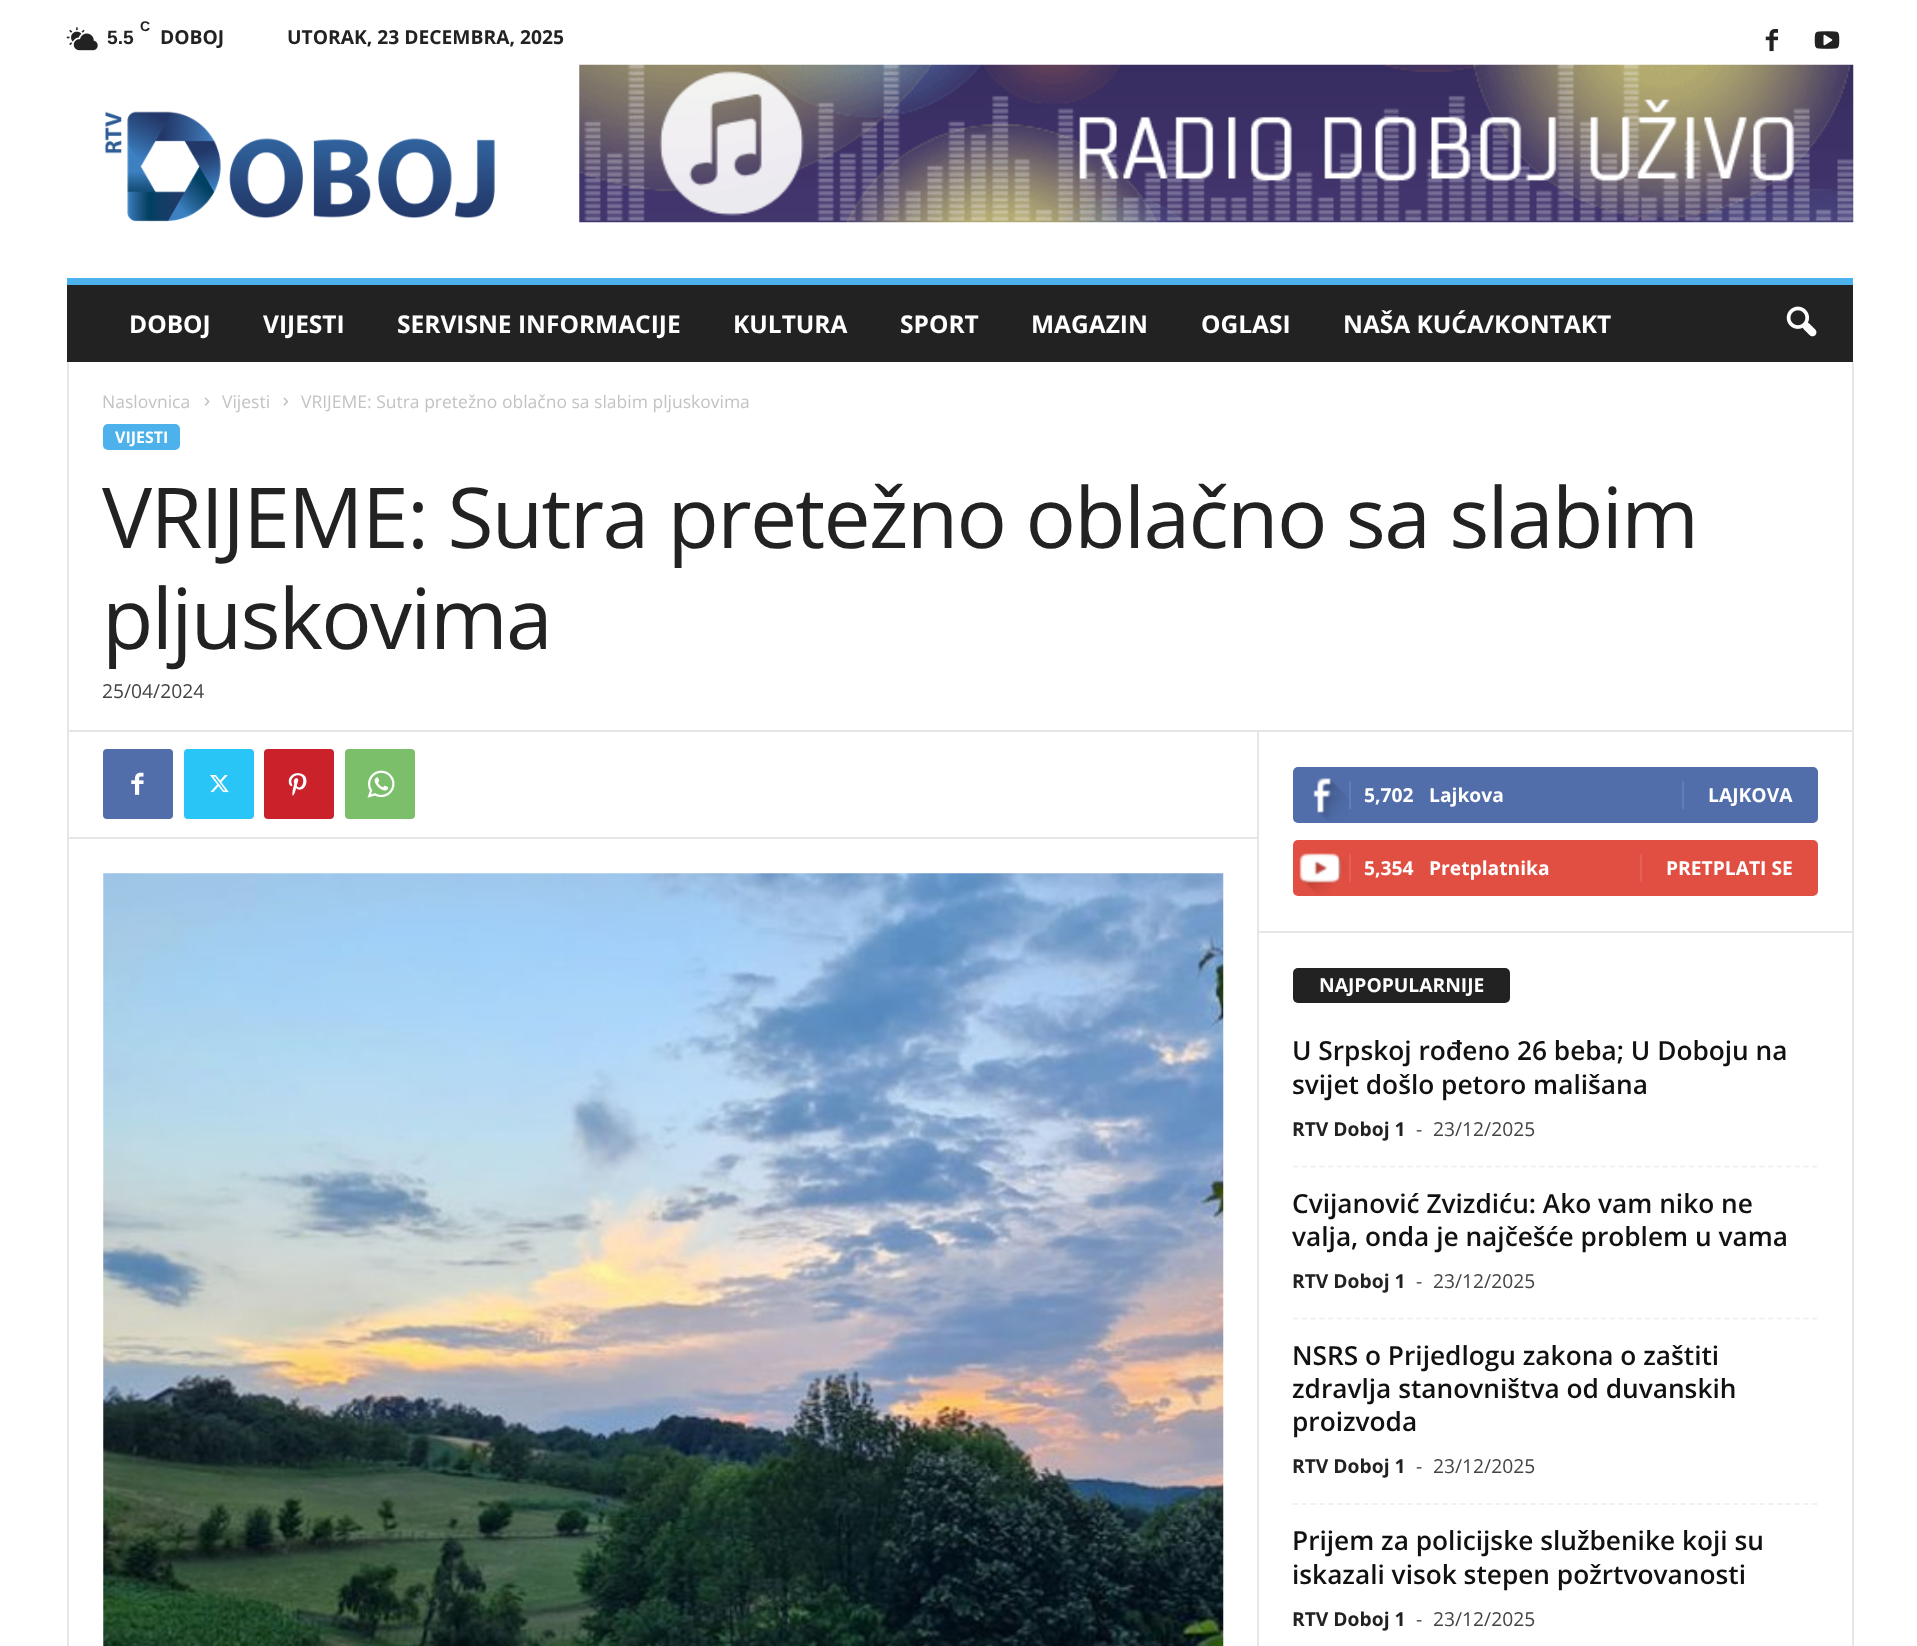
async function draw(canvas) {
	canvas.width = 1917;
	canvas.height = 1646;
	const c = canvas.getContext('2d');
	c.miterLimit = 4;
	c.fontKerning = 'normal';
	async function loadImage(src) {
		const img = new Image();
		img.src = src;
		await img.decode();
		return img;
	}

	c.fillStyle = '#fff';
	c.fillRect(0, 0, 1917, 1646);
	c.drawImage(await loadImage('img1.png'), 66, 27, 32, 24);
	c.font = 'bold 14px Liberation Sans';
	c.fillStyle = '#222';
	c.fillText('C', 140, 31);
	c.font = 'bold 19.25px Liberation Sans';
	c.fillText('5.5', 107, 44);
	c.font = 'bold 19.25px Open Sans';
	c.fillText('DOBOJ', 160, 44);
	c.fillText('UTORAK, 23 DECEMBRA, 2025', 287, 44);
	c.drawImage(await loadImage('img2.png'), 1765, 29, 13, 23);
	c.drawImage(await loadImage('img3.png'), 1814, 31, 26, 18);
	c.drawImage(await loadImage('img4.png'), 104, 111, 391, 111);
	c.drawImage(await loadImage('img5.png'), 579, 64, 1275, 159);
	c.fillRect(67, 285, 1786, 77);
	c.fillStyle = '#4db2ec';
	c.fillRect(67, 278, 1786, 7);
	c.font = 'bold 24.5px Open Sans';
	c.fillStyle = '#fff';
	for (const [text, x, y] of [
		['DOBOJ', 129, 333],
		['VIJESTI', 263, 333],
		['SERVISNE INFORMACIJE', 397, 333],
		['KULTURA', 733, 333],
		['SPORT', 900, 333],
		['MAGAZIN', 1031, 333],
		['OGLASI', 1201, 333],
		['NAŠA KUĆA/KONTAKT', 1343, 333],
	]) {
		c.fillText(text, x, y);
	}
	c.drawImage(await loadImage('img6.png'), 1786, 306, 31, 31);
	c.fillStyle = '#e6e6e6';
	c.fillRect(67, 362, 2, 1284);
	c.font = '17.5px Open Sans';
	c.fillStyle = '#c3c3c3';
	c.fillText('Naslovnica', 102, 408);
	c.drawImage(await loadImage('img7.png'), 204, 397, 6, 9);
	c.fillText('Vijesti', 222, 408);
	c.drawImage(await loadImage('img8.png'), 283, 397, 6, 9);
	c.fillText('VRIJEME: Sutra pretežno oblačno sa slabim pljuskovima', 301, 408);
	c.fillStyle = '#4db2ec';
	c.beginPath();
	c.roundRect(103, 424, 77, 26, 5);
	c.fill();
	c.font = 'bold 16px Open Sans';
	c.fillStyle = '#fff';
	c.fillText('VIJESTI', 115, 443);
	c.letterSpacing = '-1.7px';
	c.font = '84px Open Sans';
	c.fillStyle = '#222';
	c.fillText('VRIJEME: Sutra pretežno oblačno sa slabim', 102, 548);
	c.fillText('pljuskovima', 102, 649);
	c.letterSpacing = '0px';
	c.font = '19.25px Open Sans';
	c.fillStyle = '#444';
	c.fillText('25/04/2024', 102, 698);
	c.fillStyle = '#e6e6e6';
	c.fillRect(1257, 730, 2, 916);
	c.fillRect(68, 730, 1784, 2);
	c.fillStyle = '#516eab';
	c.beginPath();
	c.roundRect(103, 749, 70, 70, 4);
	c.fill();
	c.drawImage(await loadImage('img9.png'), 131, 772, 13, 23);
	c.fillStyle = '#29c5f6';
	c.beginPath();
	c.roundRect(184, 749, 70, 70, 4);
	c.fill();
	c.drawImage(await loadImage('img10.png'), 210, 775, 19, 18);
	c.fillStyle = '#ca212a';
	c.beginPath();
	c.roundRect(264, 749, 70, 70, 4);
	c.fill();
	c.drawImage(await loadImage('img11.png'), 288, 773, 19, 23);
	c.fillStyle = '#7bbf6a';
	c.beginPath();
	c.roundRect(345, 749, 70, 70, 4);
	c.fill();
	c.drawImage(await loadImage('img12.png'), 367, 770, 28, 28);
	c.fillStyle = '#e6e6e6';
	c.fillRect(68, 837, 1189, 2);
	c.drawImage(await loadImage('img13.png'), 103, 873, 1121, 773);
	c.fillStyle = '#516eab';
	c.beginPath();
	c.roundRect(1293, 767, 525, 56, 5);
	c.fill();
	c.drawImage(await loadImage('img14.png'), 1313, 777, 36, 45);
	c.fillStyle = '#627db3';
	c.fillRect(1349, 781, 2, 28);
	c.font = 'bold 19.25px Open Sans';
	c.fillStyle = '#fff';
	c.fillText('5,702', 1364, 802);
	c.fillText('Lajkova', 1429, 802);
	c.fillStyle = '#627db3';
	c.fillRect(1682, 781, 2, 28);
	c.fillStyle = '#fff';
	c.fillText('LAJKOVA', 1708, 802);
	c.fillStyle = '#e14e42';
	c.beginPath();
	c.roundRect(1293, 840, 525, 56, 5);
	c.fill();
	c.drawImage(await loadImage('img15.png'), 1299, 853, 48, 42);
	c.fillStyle = '#e46055';
	c.fillRect(1349, 854, 2, 28);
	c.fillStyle = '#fff';
	c.fillText('5,354', 1364, 875);
	c.fillText('Pretplatnika', 1429, 875);
	c.fillStyle = '#e46055';
	c.fillRect(1640, 854, 2, 28);
	c.fillStyle = '#fff';
	c.fillText('PRETPLATI SE', 1666, 875);
	c.fillStyle = '#e6e6e6';
	c.fillRect(1258, 931, 594, 2);
	c.fillStyle = '#222';
	c.beginPath();
	c.roundRect(1293, 968, 217, 35, 5);
	c.fill();
	c.fillStyle = '#fff';
	c.fillText('NAJPOPULARNIJE', 1319, 992);
	c.beginPath();
	c.moveTo(1293, 1166.5);
	c.lineTo(1818, 1166.5);
	c.strokeStyle = '#f1f1f1';
	c.lineWidth = 1.8;
	c.setLineDash([5.25, 3.55]);
	c.stroke();
	c.font = '600 26.25px Open Sans';
	c.fillStyle = '#111';
	c.fillText('U Srpskoj rođeno 26 beba; U Doboju na', 1292, 1060);
	c.fillText('svijet došlo petoro mališana', 1292, 1094);
	c.font = 'bold 19.25px Open Sans';
	c.fillStyle = '#222';
	c.fillText('RTV Doboj 1', 1292, 1136);
	c.font = '19.25px Open Sans';
	c.fillStyle = '#444';
	c.fillText('-', 1416, 1136);
	c.fillText('23/12/2025', 1433, 1136);
	c.beginPath();
	c.moveTo(1293, 1318.5);
	c.lineTo(1818, 1318.5);
	c.stroke();
	c.font = '600 26.25px Open Sans';
	c.fillStyle = '#111';
	c.fillText('Cvijanović Zvizdiću: Ako vam niko ne', 1292, 1213);
	c.fillText('valja, onda je najčešće problem u vama', 1292, 1246);
	c.font = 'bold 19.25px Open Sans';
	c.fillStyle = '#222';
	c.fillText('RTV Doboj 1', 1292, 1288);
	c.font = '19.25px Open Sans';
	c.fillStyle = '#444';
	c.fillText('-', 1416, 1288);
	c.fillText('23/12/2025', 1433, 1288);
	c.beginPath();
	c.moveTo(1293, 1504);
	c.lineTo(1818, 1504);
	c.stroke();
	c.font = '600 26.25px Open Sans';
	c.fillStyle = '#111';
	for (const [text, x, y] of [
		['NSRS o Prijedlogu zakona o zaštiti', 1292, 1365],
		['zdravlja stanovništva od duvanskih', 1292, 1398],
		['proizvoda', 1292, 1431],
	]) {
		c.fillText(text, x, y);
	}
	c.font = 'bold 19.25px Open Sans';
	c.fillStyle = '#222';
	c.fillText('RTV Doboj 1', 1292, 1473);
	c.font = '19.25px Open Sans';
	c.fillStyle = '#444';
	c.fillText('-', 1416, 1473);
	c.fillText('23/12/2025', 1433, 1473);
	c.font = '600 26.25px Open Sans';
	c.fillStyle = '#111';
	c.fillText('Prijem za policijske službenike koji su', 1292, 1550);
	c.fillText('iskazali visok stepen požrtvovanosti', 1292, 1584);
	c.font = 'bold 19.25px Open Sans';
	c.fillStyle = '#222';
	c.fillText('RTV Doboj 1', 1292, 1626);
	c.font = '19.25px Open Sans';
	c.fillStyle = '#444';
	c.fillText('-', 1416, 1626);
	c.fillText('23/12/2025', 1433, 1626);
	c.fillStyle = '#e6e6e6';
	c.fillRect(1852, 362, 2, 1284);
}

draw(document.querySelector('canvas'));
